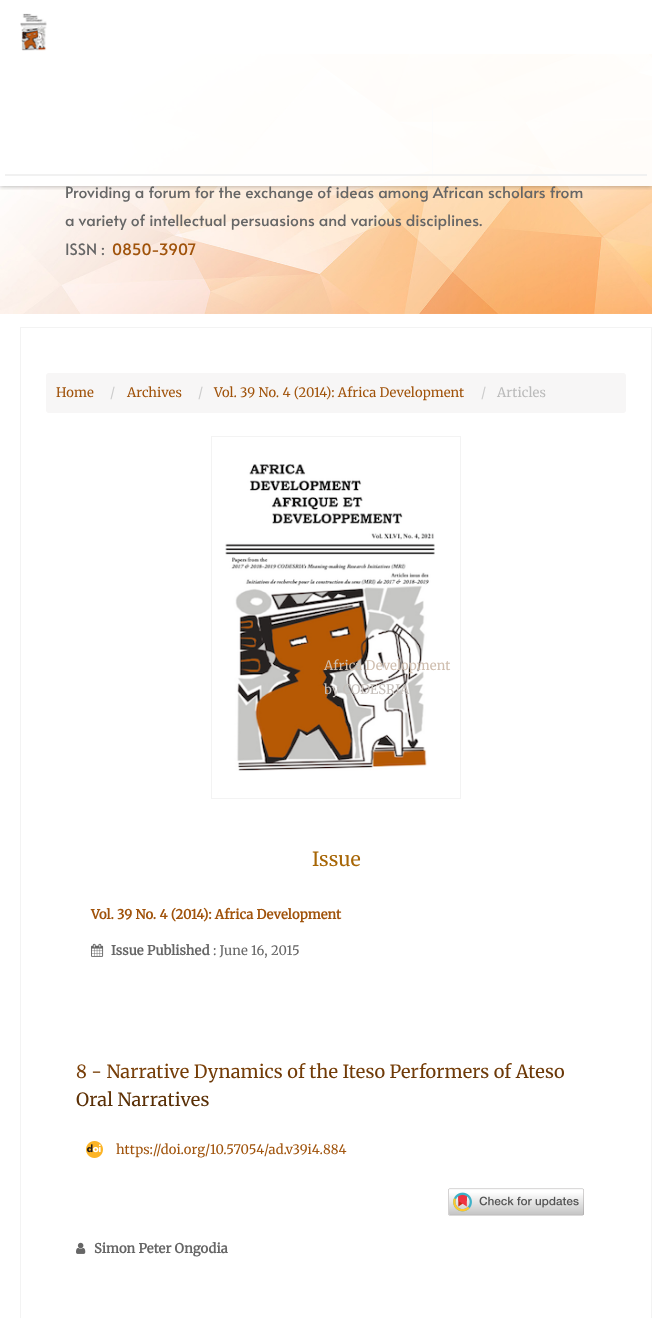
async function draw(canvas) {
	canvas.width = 652;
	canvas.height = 1318;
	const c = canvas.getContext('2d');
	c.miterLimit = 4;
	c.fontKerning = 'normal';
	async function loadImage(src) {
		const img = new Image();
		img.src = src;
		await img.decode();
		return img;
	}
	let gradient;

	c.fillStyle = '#fff';
	c.fillRect(0, 0, 652, 1318);
	c.fillStyle = '#fafafa';
	c.fillRect(0, 0, 652, 54);
	c.drawImage(await loadImage('img2.png'), 0, 54, 652, 260);
	c.fillStyle = '#dad8d8';
	c.fillRect(432, 104, 1, 74);
	c.save();
	c.beginPath();
	c.rect(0, 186, 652, 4);
	c.clip();
	c.fillStyle = '#00000040';
	c.filter = 'blur(2px)';
	c.beginPath();
	c.rect(0, 1, 652, 186);
	c.fill();
	c.filter = 'none';
	c.restore();
	c.fillStyle = '#ffffffeb';
	c.fillRect(0, 0, 652, 186);
	c.drawImage(await loadImage('img1.png'), 20, 13, 27, 38);
	c.fillStyle = '#f1f1f1';
	c.fillRect(5, 174, 642, 2);
	c.letterSpacing = '0.1px';
	c.font = '15.6px Alata';
	c.fillStyle = '#666';
	for (const [text, x, y] of [
		['Providing a forum for the exchange of ideas among African scholars from', 65, 198],
		['a variety of intellectual persuasions and various disciplines.', 65, 226],
		['ISSN :', 65, 255],
	]) {
		c.fillText(text, x, y);
	}
	c.fillStyle = '#a0530b';
	c.fillText('0850-3907', 112, 255);
	c.strokeStyle = '#f3f3f3';
	c.strokeRect(20.5, 327.5, 631, 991);
	c.fillStyle = '#f7f6f6';
	c.beginPath();
	c.roundRect(46, 373, 580, 40, 3);
	c.fill();
	c.font = '300 13px Merriweather';
	c.fillStyle = '#a0530b';
	c.fillText('Home', 56, 397);
	c.fillStyle = '#ccc';
	c.fillText('/', 110, 397);
	c.fillStyle = '#a0530b';
	c.fillText('Archives', 127, 397);
	c.fillStyle = '#ccc';
	c.fillText('/', 198, 397);
	c.fillStyle = '#a0530b';
	c.fillText('Vol. 39 No. 4 (2014): Africa Development', 214, 397);
	c.fillStyle = '#ccc';
	c.fillText('/', 481, 397);
	c.fillStyle = '#bbb';
	c.fillText('Articles', 497, 397);
	c.strokeRect(211.5, 436.5, 249, 362);
	c.drawImage(await loadImage('img3.png'), 225, 464, 210, 307);
	c.font = '300 19.5px Merriweather';
	c.fillStyle = '#a76606';
	c.fillText('Issue', 312, 866);
	c.font = 'bold 13px Merriweather';
	c.fillStyle = '#a0530b';
	c.fillText('Vol. 39 No. 4 (2014): Africa Development', 91, 919);
	c.drawImage(await loadImage('img4.png'), 91, 943, 13, 14);
	c.fillStyle = '#666';
	c.fillText('Issue Published', 111, 955);
	c.font = '300 13px Merriweather';
	c.fillText(': June 16, 2015', 213, 955);
	c.font = '300 18.2px Merriweather';
	gradient = c.createLinearGradient(337, 1122, 335, 1049);
	gradient.addColorStop(0, '#402204');
	gradient.addColorStop(1, '#884709');
	c.fillStyle = gradient;
	c.fillText('8 - Narrative Dynamics of the Iteso Performers of Ateso', 76, 1078);
	c.fillText('Oral Narratives', 76, 1106);
	c.drawImage(await loadImage('img5.png'), 86, 1141, 17, 17);
	c.font = '300 13px Merriweather';
	c.fillStyle = '#a0530b';
	c.fillText('https://doi.org/10.57054/ad.v39i4.884', 116, 1154);
	c.drawImage(await loadImage('img6.png'), 448, 1188, 136, 28);
	c.drawImage(await loadImage('img7.png'), 76, 1242, 10, 12);
	c.font = 'bold 13px Merriweather';
	c.fillStyle = '#666';
	c.fillText('Simon Peter Ongodia', 94, 1253);
	c.font = '300 13px Merriweather';
	c.fillStyle = '#cfbeaf';
	c.fillText('Africa Development', 324, 670);
	c.fillStyle = '#c6c0bc';
	c.fillText('by CODESRIA', 324, 694);
}

draw(document.querySelector('canvas'));
